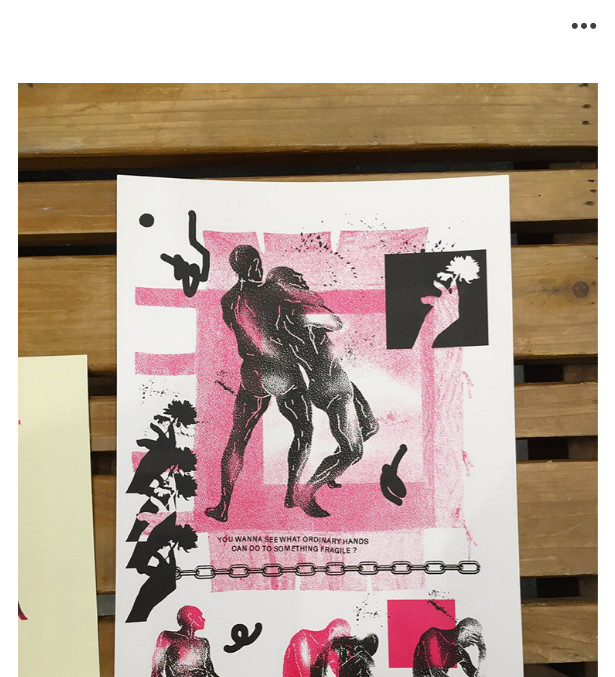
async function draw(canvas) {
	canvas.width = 615;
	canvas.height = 677;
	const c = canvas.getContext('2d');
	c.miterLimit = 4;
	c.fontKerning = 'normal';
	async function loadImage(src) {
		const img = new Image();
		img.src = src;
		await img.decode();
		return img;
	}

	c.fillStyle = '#fff';
	c.fillRect(0, 0, 615, 677);
	c.drawImage(await loadImage('img1.png'), 571, 22, 26, 7);
	c.drawImage(await loadImage('img2.png'), 18, 83, 580, 594);
}

draw(document.querySelector('canvas'));
